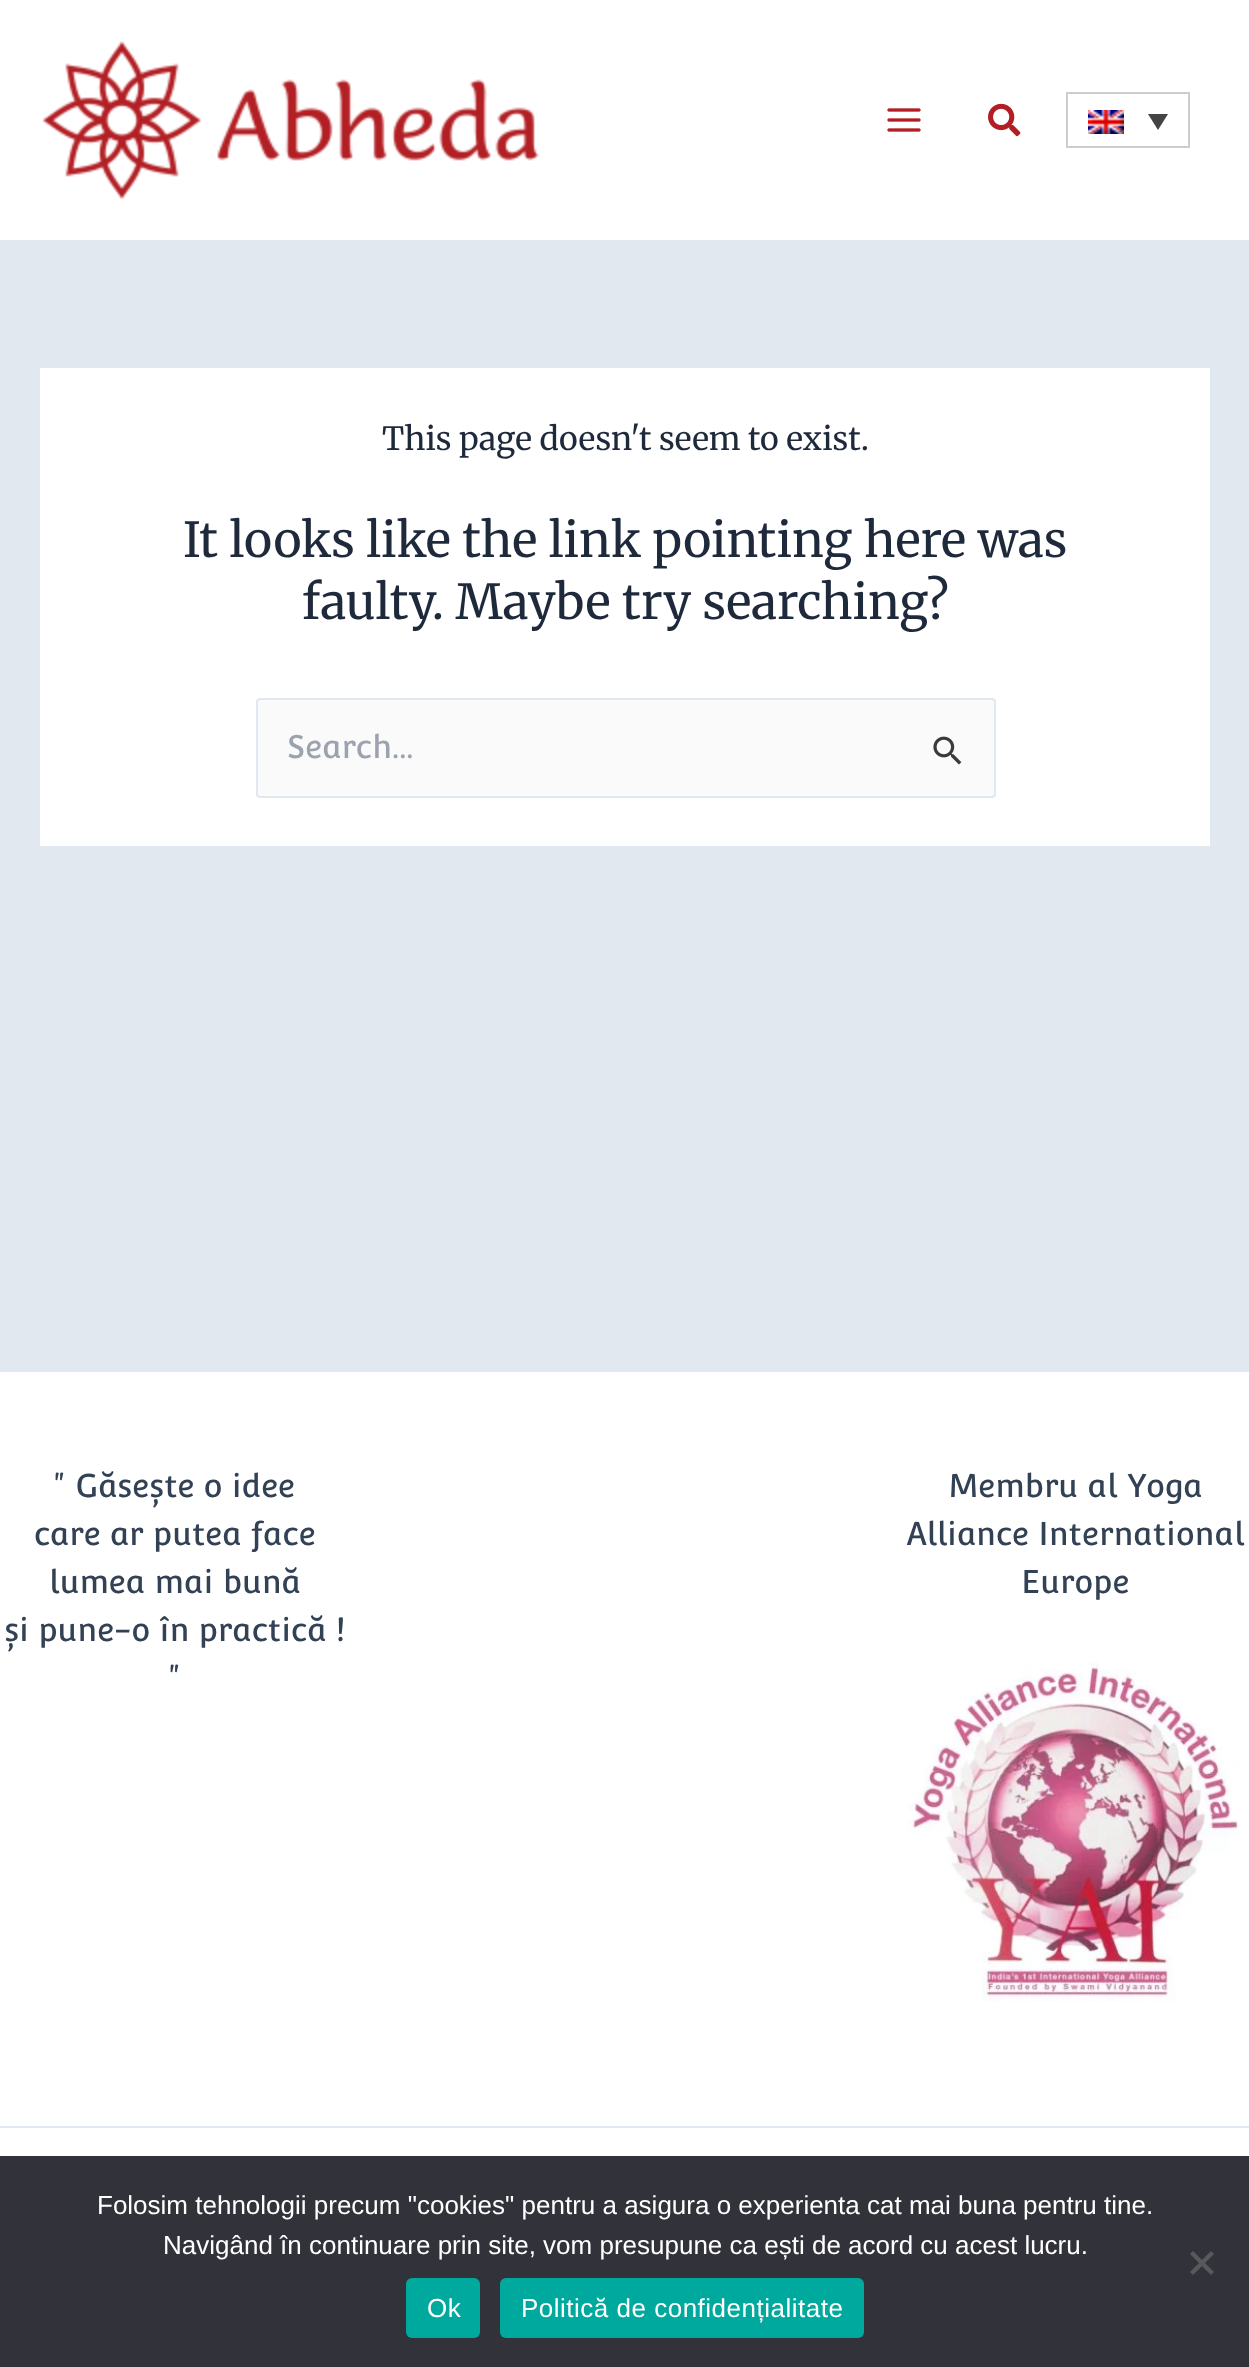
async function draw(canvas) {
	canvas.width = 1249;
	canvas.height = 2367;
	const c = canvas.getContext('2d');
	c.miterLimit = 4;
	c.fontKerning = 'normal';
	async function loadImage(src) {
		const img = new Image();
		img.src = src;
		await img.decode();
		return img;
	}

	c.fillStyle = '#e2e8f0';
	c.fillRect(0, 0, 1249, 2367);
	c.fillStyle = '#fff';
	c.fillRect(0, 0, 1249, 240);
	c.drawImage(await loadImage('img1.png'), 42, 41, 497, 159);
	c.drawImage(await loadImage('img2.png'), 887, 108, 34, 24);
	c.drawImage(await loadImage('img3.png'), 988, 103, 33, 34);
	c.strokeStyle = '#cdcdcd';
	c.lineWidth = 2;
	c.strokeRect(1067, 93, 122, 54);
	c.drawImage(await loadImage('img4.png'), 1088, 110, 36, 24);
	c.fillStyle = '#444';
	c.beginPath();
	c.moveTo(1148, 114);
	c.lineTo(1168, 114);
	c.lineTo(1158, 130);
	c.closePath();
	c.fill();
	c.fillStyle = '#fff';
	c.fillRect(40, 368, 1170, 478);
	c.font = '32px Merriweather';
	c.fillStyle = '#1e293b';
	c.fillText('This page doesn\'t seem to exist.', 382, 450);
	c.font = '48px Merriweather';
	c.fillText('It looks like the link pointing here was', 183, 557);
	c.fillText('faulty. Maybe try searching?', 302, 619);
	c.fillStyle = '#fafafa';
	c.beginPath();
	c.roundRect(257, 699, 738, 98, 3);
	c.fill();
	c.strokeStyle = '#e2e8f0';
	c.stroke();
	c.font = '32px Convergence';
	c.fillStyle = '#9ca3af';
	c.fillText('Search...', 287, 758);
	c.drawImage(await loadImage('img5.png'), 933, 736, 29, 29);
	c.fillStyle = '#fff';
	c.fillRect(0, 1372, 1249, 754);
	c.fillStyle = '#334155';
	for (const [text, x, y] of [
		['" Găsește o idee', 54, 1497],
		['care ar putea face', 34, 1545],
		['lumea mai bună', 49, 1593],
		['și pune-o în practică !', 4, 1641],
		['"', 169, 1689],
		['Membru al Yoga', 948, 1497],
		['Alliance International', 906, 1545],
		['Europe', 1021, 1593],
	]) {
		c.fillText(text, x, y);
	}
	c.drawImage(await loadImage('img6.png'), 908, 1662, 331, 340);
	c.fillStyle = '#fff';
	c.fillRect(0, 2128, 1249, 28);
	c.fillStyle = '#32323a';
	c.fillRect(0, 2156, 1249, 211);
	c.font = '26px Liberation Sans';
	c.fillStyle = '#fff';
	c.fillText('Folosim tehnologii precum "cookies" pentru a asigura o experienta cat mai buna pentru tine.', 97, 2214);
	c.fillText('Navigând în continuare prin site, vom presupune ca ești de acord cu acest lucru.', 163, 2254);
	c.fillStyle = '#59595d';
	c.beginPath();
	c.moveTo(1211, 2251);
	c.lineTo(1214, 2254);
	c.lineTo(1193, 2275);
	c.lineTo(1190, 2272);
	c.closePath();
	c.fill();
	c.beginPath();
	c.moveTo(1190, 2254);
	c.lineTo(1193, 2251);
	c.lineTo(1214, 2272);
	c.lineTo(1211, 2275);
	c.closePath();
	c.fill();
	c.fillStyle = '#00a99d';
	c.beginPath();
	c.roundRect(406, 2278, 74, 60, 6);
	c.fill();
	c.letterSpacing = '0.5px';
	c.fillStyle = '#fff';
	c.fillText('Ok', 427, 2317);
	c.fillStyle = '#00a99d';
	c.beginPath();
	c.roundRect(500, 2278, 364, 60, 6);
	c.fill();
	c.fillStyle = '#fff';
	c.fillText('Politică de confidențialitate', 521, 2317);
}

draw(document.querySelector('canvas'));
